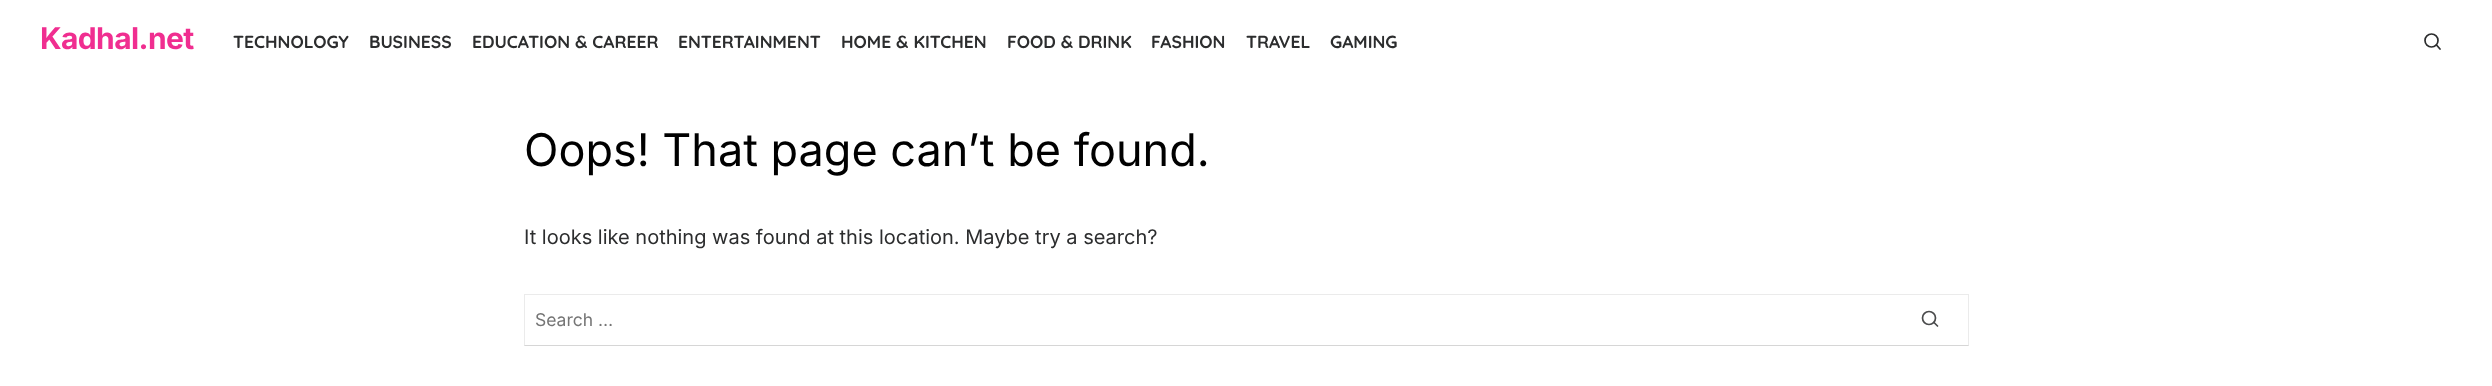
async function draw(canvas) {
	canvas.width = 2492;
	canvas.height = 386;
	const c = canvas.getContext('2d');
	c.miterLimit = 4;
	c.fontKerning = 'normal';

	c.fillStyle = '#fff';
	c.fillRect(0, 0, 2492, 386);
	c.letterSpacing = '-0.6px';
	c.font = 'bold 30px Inter';
	c.fillStyle = '#f02e90';
	c.fillText('Kadhal.net', 40, 49);
	c.letterSpacing = '0px';
	c.font = 'bold 17.5px Quicksand';
	c.fillStyle = '#2c2d2e';
	for (const [text, x, y] of [
		['TECHNOLOGY', 233, 48],
		['BUSINESS', 369, 48],
		['EDUCATION & CAREER', 472, 48],
		['ENTERTAINMENT', 678, 48],
		['HOME & KITCHEN', 841, 48],
		['FOOD & DRINK', 1007, 48],
		['FASHION', 1151, 48],
		['TRAVEL', 1246, 48],
		['GAMING', 1330, 48],
	]) {
		c.fillText(text, x, y);
	}
	c.beginPath();
	c.arc(2431.5, 40.5, 6.5, 0, 2 * Math.PI);
	c.strokeStyle = '#2c2d2e';
	c.lineWidth = 1.7;
	c.stroke();
	c.beginPath();
	c.moveTo(2440, 49);
	c.lineTo(2436.5, 45);
	c.lineCap = 'round';
	c.lineJoin = 'round';
	c.stroke();
	c.font = '45px Inter';
	c.fillStyle = '#000';
	c.fillText('Oops! That page can’t be found.', 524, 166);
	c.font = '20px Inter';
	c.fillStyle = '#2c2d2e';
	c.fillText('It looks like nothing was found at this location. Maybe try a search?', 524, 244);
	c.fillStyle = '#ebebeb';
	c.beginPath();
	c.moveTo(524, 294);
	c.lineTo(1969, 294);
	c.lineTo(1968, 295);
	c.lineTo(525, 295);
	c.closePath();
	c.fill();
	c.fillStyle = '#00000014';
	c.beginPath();
	c.moveTo(1969, 294);
	c.lineTo(1969, 346);
	c.lineTo(1968, 345);
	c.lineTo(1968, 295);
	c.closePath();
	c.fill();
	c.fillStyle = '#00000029';
	c.beginPath();
	c.moveTo(1969, 346);
	c.lineTo(524, 346);
	c.lineTo(525, 345);
	c.lineTo(1968, 345);
	c.closePath();
	c.fill();
	c.fillStyle = '#00000014';
	c.beginPath();
	c.moveTo(524, 346);
	c.lineTo(524, 294);
	c.lineTo(525, 295);
	c.lineTo(525, 345);
	c.closePath();
	c.fill();
	c.font = '17.5px Inter';
	c.fillStyle = '#757575';
	c.fillText('Search …', 535, 326);
	c.beginPath();
	c.arc(1929, 318, 6.5, 0, 2 * Math.PI);
	c.strokeStyle = '#4b4c4d';
	c.stroke();
	c.beginPath();
	c.moveTo(1937.5, 326);
	c.lineTo(1934, 322.5);
	c.stroke();
}

draw(document.querySelector('canvas'));
